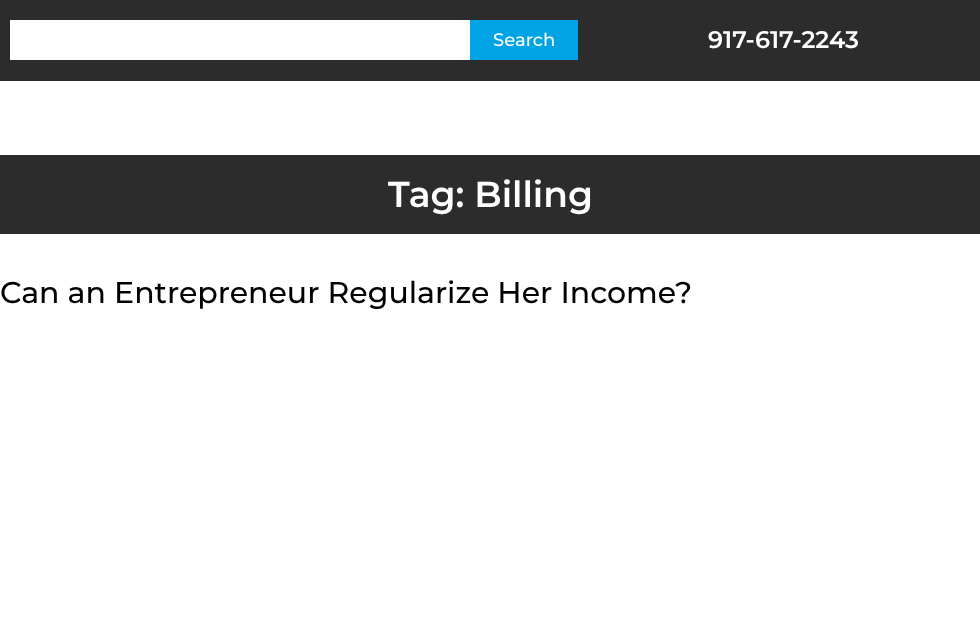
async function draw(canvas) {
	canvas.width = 980;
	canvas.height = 630;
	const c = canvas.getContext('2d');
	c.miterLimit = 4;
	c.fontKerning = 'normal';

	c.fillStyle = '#fff';
	c.fillRect(0, 0, 980, 630);
	for (const [x, y, w, h, color] of [
		[0, 0, 980, 81, '#2c2c2c'],
		[10, 20, 460, 40, '#fff'],
		[470, 20, 108, 40, '#00a3e4'],
	]) {
		c.fillStyle = color;
		c.fillRect(x, y, w, h);
	}
	c.font = '500 18px Montserrat';
	c.fillStyle = '#fff';
	c.fillText('Search', 493, 46);
	c.font = '600 24px Montserrat';
	c.fillText('917-617-2243', 708, 48);
	c.fillStyle = '#2c2c2c';
	c.fillRect(0, 155, 980, 79);
	c.font = '600 36px Montserrat';
	c.fillStyle = '#fff';
	c.fillText('Tag: Billing', 388, 207);
	c.font = '500 30px Montserrat';
	c.fillStyle = '#000';
	c.fillText('Can an Entrepreneur Regularize Her Income?', 0, 303);
}

draw(document.querySelector('canvas'));
